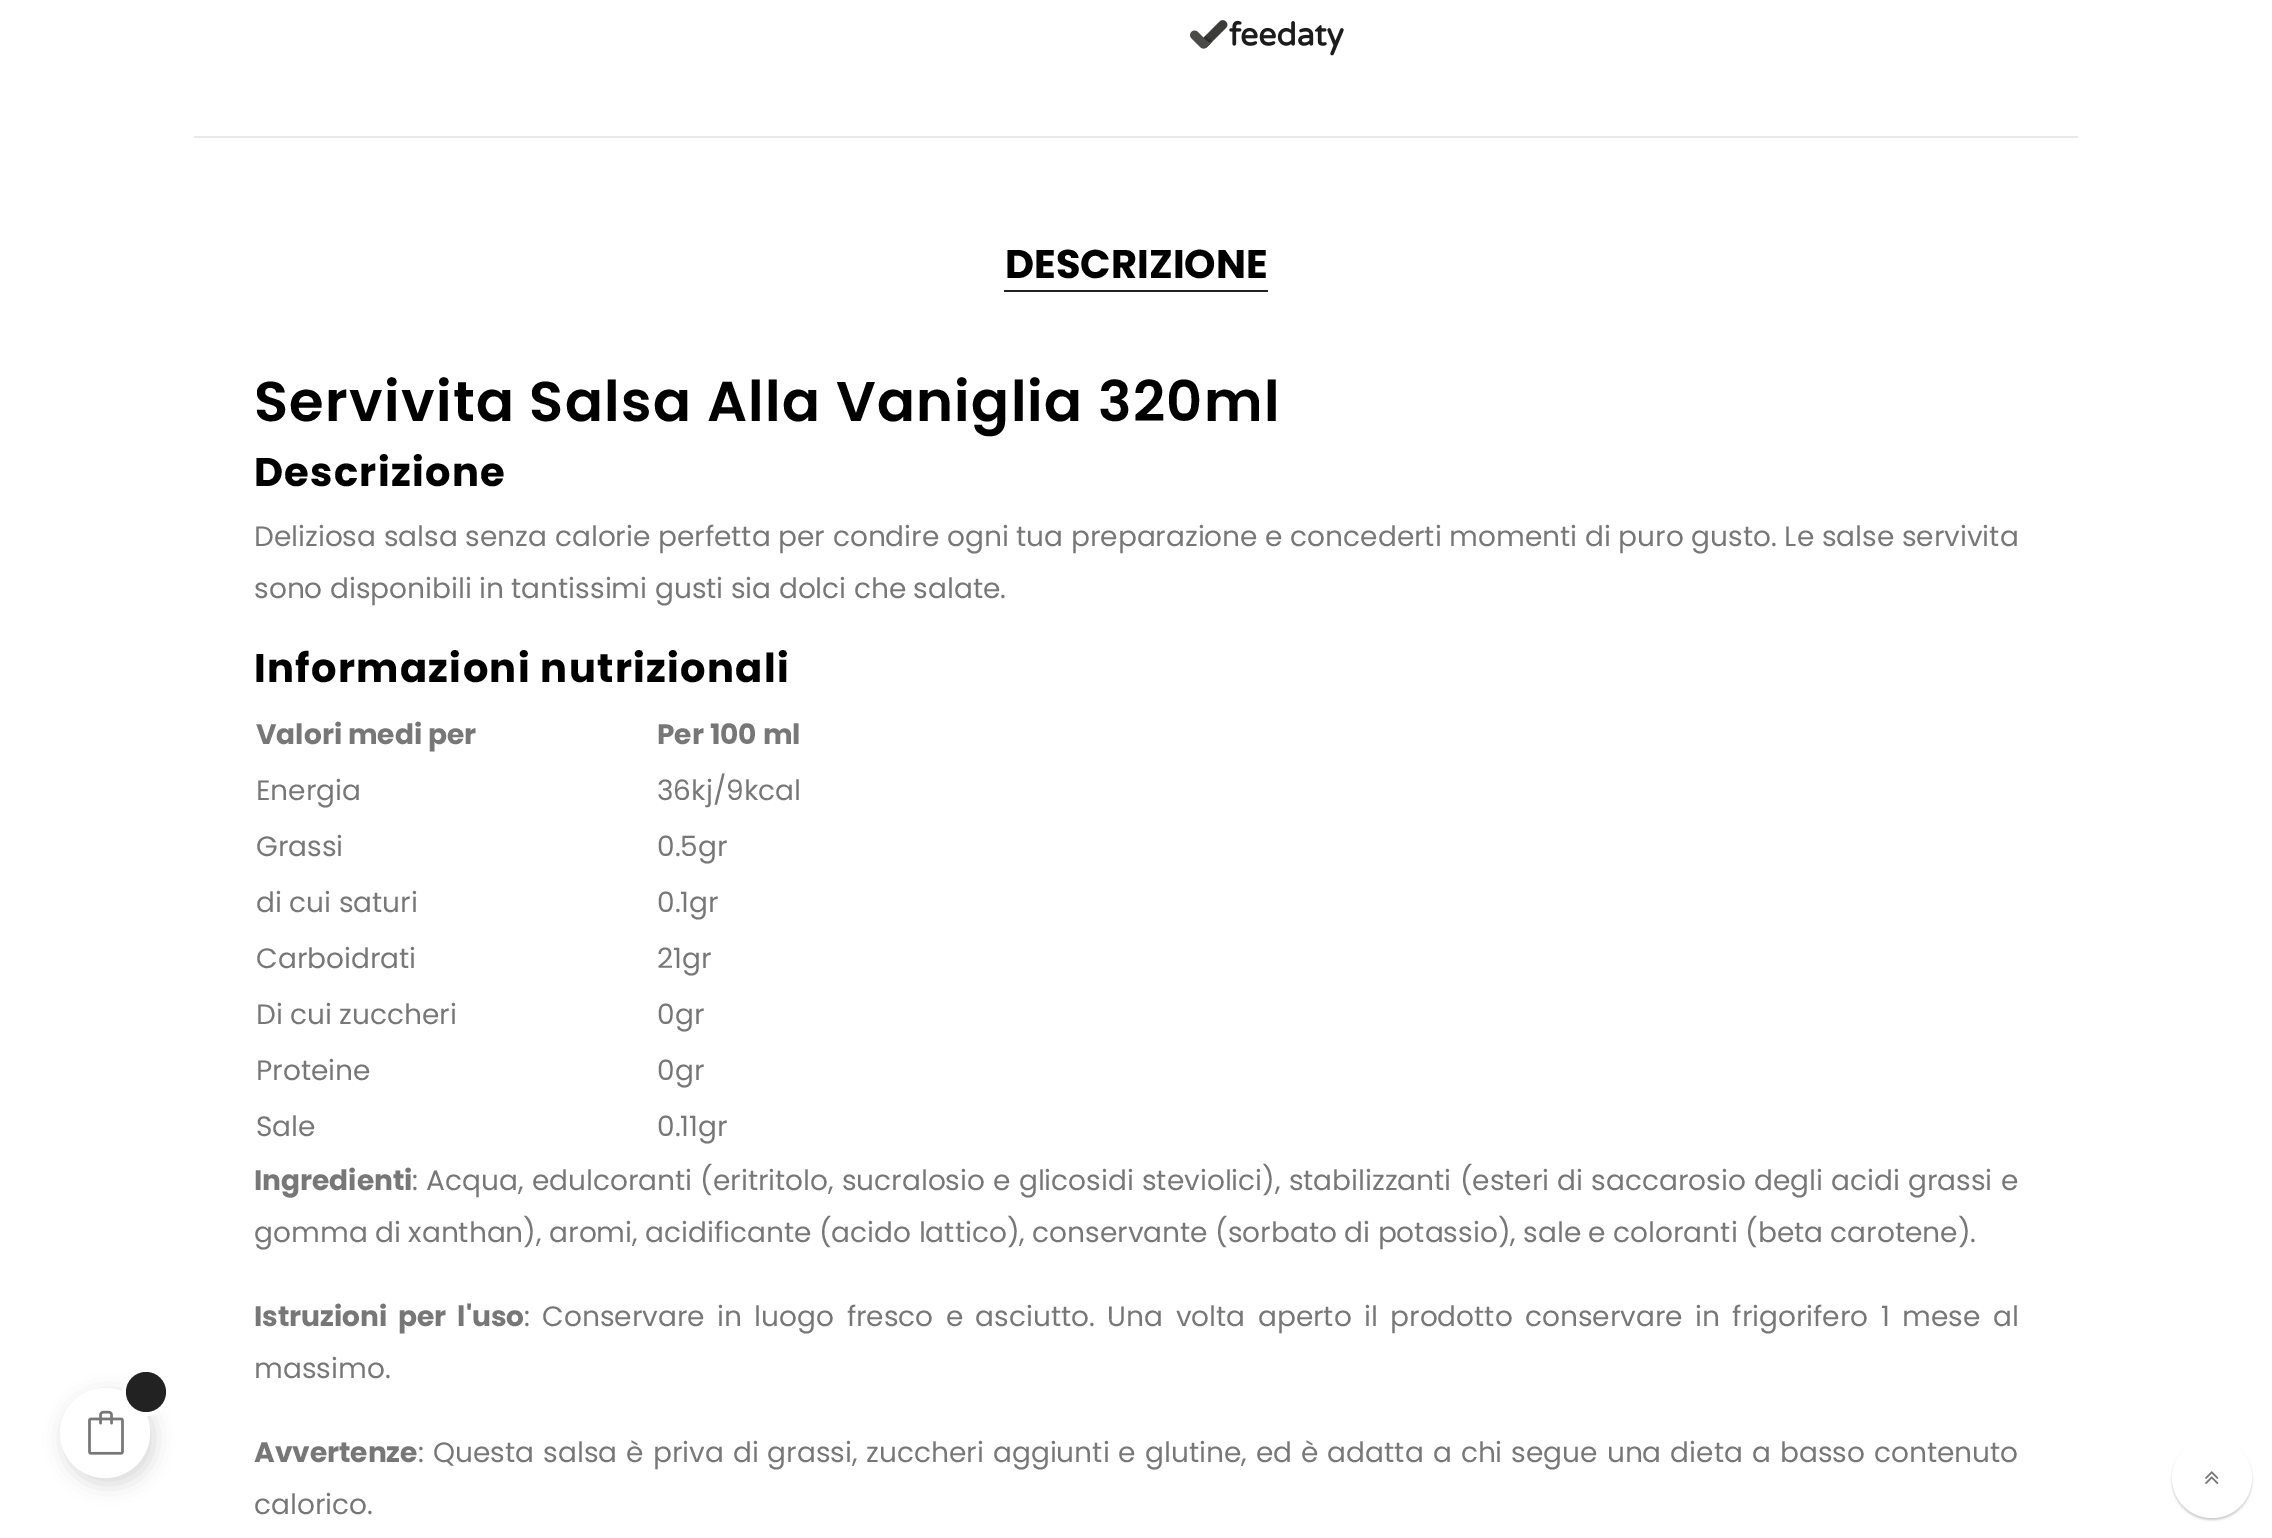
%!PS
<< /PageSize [2272 1538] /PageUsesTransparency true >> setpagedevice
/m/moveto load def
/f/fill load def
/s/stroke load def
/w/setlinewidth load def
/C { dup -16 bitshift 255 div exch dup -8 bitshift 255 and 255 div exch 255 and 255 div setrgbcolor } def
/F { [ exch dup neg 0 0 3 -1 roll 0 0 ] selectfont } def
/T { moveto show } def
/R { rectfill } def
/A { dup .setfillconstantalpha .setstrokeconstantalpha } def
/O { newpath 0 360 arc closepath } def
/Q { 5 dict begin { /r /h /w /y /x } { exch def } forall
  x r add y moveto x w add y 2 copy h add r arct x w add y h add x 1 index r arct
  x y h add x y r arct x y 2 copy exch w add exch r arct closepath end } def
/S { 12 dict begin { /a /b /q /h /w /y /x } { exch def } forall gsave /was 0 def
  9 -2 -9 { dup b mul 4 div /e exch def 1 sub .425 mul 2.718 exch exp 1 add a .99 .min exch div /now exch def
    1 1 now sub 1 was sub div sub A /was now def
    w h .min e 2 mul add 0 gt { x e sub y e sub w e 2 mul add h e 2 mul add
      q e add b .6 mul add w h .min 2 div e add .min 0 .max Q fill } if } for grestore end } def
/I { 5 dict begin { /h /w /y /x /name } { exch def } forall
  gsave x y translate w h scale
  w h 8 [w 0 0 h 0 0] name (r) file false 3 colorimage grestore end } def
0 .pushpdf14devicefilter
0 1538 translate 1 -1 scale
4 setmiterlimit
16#FFFFFF C
0 0 2272 1538 R
16#000000 C
64 1394 90 90 45 10 .15 S
16#FFFFFF C
105 1433 45 O f
(1.rgb) 88 1410 36 45 I
4 w
146 1392 22 O s
16#222222 C
146 1392 20 O f
(2.rgb) 1190 20 154 36 I
16#E9E9E9 C
194 136 1884 2 R
/Poppins-Bold 40 F
16#000000 C
(DESCRIZIONE) 1005 278 T
16#222222 C
1004 290 264 2 R
/Poppins-SemiBold 56 F
16#000000 C
254 421 m 1.3 0 (Servivita Salsa Alla Vaniglia 320ml) ashow
/Poppins-Bold 40 F
254 486 m 1.3 0 (Descrizione) ashow
/Poppins-Regular 28 F
16#777777 C
254 546 m .25 0 32 (Deliziosa salsa senza calorie perfetta per condire ogni tua preparazione e concederti momenti di puro gusto. Le salse servivita) widthshow
(sono disponibili in tantissimi gusti sia dolci che salate.) 254 598 T
/Poppins-Bold 40 F
16#000000 C
254 682 m 1.3 0 (Informazioni nutrizionali) ashow
/Poppins-Bold 28 F
16#777777 C
(Valori medi per) 256 744 T
(Per 100 ml) 657 744 T
/Poppins-Regular 28 F
(Energia) 256 800 T
(36kj/9kcal) 657 800 T
(Grassi) 256 856 T
(0.5gr) 657 856 T
(di cui saturi) 256 912 T
(0.1gr) 657 912 T
(Carboidrati) 256 968 T
(21gr) 657 968 T
(Di cui zuccheri) 256 1024 T
(0gr) 657 1024 T
(Proteine) 256 1080 T
(0gr) 657 1080 T
(Sale) 256 1136 T
(0.11gr) 657 1136 T
/Poppins-Bold 28 F
(Ingredienti) 254 1190 T
/Poppins-Regular 28 F
412 1190 m .75 0 32 (: Acqua, edulcoranti \(eritritolo, sucralosio e glicosidi steviolici\), stabilizzanti \(esteri di saccarosio degli acidi grassi e) widthshow
(gomma di xanthan\), aromi, acidificante \(acido lattico\), conservante \(sorbato di potassio\), sale e coloranti \(beta carotene\).) 254 1242 T
/Poppins-Bold 28 F
254 1326 m 5 0 32 (Istruzioni per l'uso) widthshow
/Poppins-Regular 28 F
524 1326 m 5 0 32 (: Conservare in luogo fresco e asciutto. Una volta aperto il prodotto conservare in frigorifero 1 mese al) widthshow
(massimo.) 254 1378 T
/Poppins-Bold 28 F
(Avvertenze) 254 1462 T
/Poppins-Regular 28 F
418 1462 m 1.6 0 32 (: Questa salsa è priva di grassi, zuccheri aggiunti e glutine, ed è adatta a chi segue una dieta a basso contenuto) widthshow
(calorico.) 254 1514 T
16#000000 C
2172 1440 80 80 40 1 .2 S
16#FFFFFF C
2212 1478 40 O f
(3.rgb) 2205 1471 14 13 I
.poppdf14devicefilter showpage
